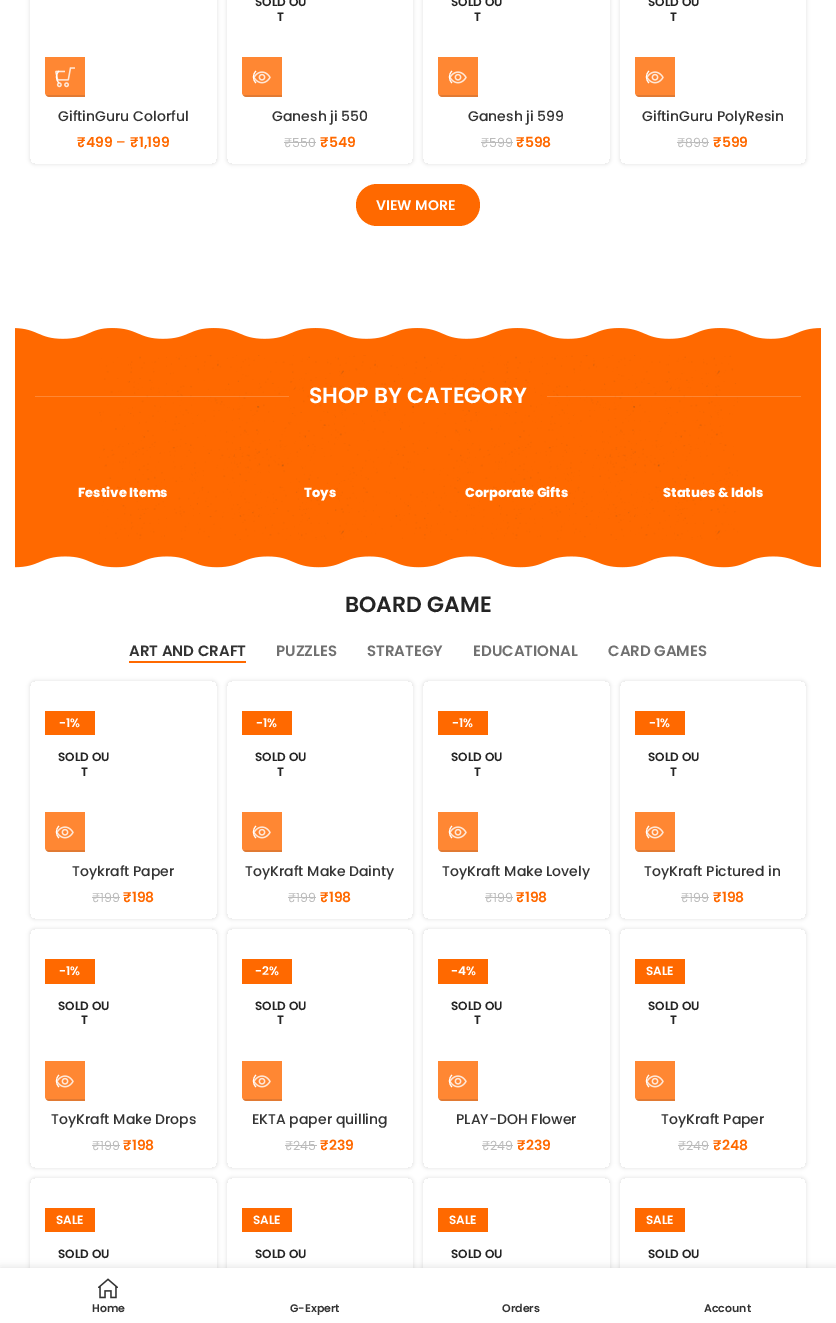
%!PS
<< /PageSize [836 1323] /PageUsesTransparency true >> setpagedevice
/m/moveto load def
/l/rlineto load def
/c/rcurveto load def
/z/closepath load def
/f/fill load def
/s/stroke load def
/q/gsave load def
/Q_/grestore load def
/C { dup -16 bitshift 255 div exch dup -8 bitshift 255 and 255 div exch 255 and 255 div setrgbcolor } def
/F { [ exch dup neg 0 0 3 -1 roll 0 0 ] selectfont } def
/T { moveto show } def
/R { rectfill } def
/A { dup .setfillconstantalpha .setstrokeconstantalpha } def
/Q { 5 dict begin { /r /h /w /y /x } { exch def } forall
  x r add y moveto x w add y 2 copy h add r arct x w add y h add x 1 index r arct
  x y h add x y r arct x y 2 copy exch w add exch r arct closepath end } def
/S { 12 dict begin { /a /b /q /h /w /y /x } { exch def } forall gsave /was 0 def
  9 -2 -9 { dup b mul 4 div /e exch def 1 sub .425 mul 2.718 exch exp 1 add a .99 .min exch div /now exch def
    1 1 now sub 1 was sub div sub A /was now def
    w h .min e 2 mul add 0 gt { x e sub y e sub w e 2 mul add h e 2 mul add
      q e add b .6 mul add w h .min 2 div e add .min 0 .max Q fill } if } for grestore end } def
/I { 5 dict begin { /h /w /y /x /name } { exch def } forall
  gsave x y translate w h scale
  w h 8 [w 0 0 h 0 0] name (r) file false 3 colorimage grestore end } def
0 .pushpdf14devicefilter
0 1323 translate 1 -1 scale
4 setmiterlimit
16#FFFFFF C
0 0 836 1323 R
q
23 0 m 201 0 l 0 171 l -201 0 l z 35 -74 m 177 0 l 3 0 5 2 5 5 c 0 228 l 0 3 -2 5 -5 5 c -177 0 l -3 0 -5 -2 -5 -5 c 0 -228 l 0 -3 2 -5 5 -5 c z eoclip newpath
16#000000 C
30 -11 187 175 5 2 .12 S
Q_
16#FF8733 C
45 57 m 40 0 l 0 40 l -35 0 l -3 0 -5 -2 -5 -5 c z f
q
45 -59 157 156 5 Q clip newpath
0.15 A
16#333333 C
45 95 40 2 R
Q_
(1.rgb) 55 67 20 21 I
16#FFFFFF C
59 83 m -3.5 -3.5 -3.5 -8.5 0 -12 c s
/Poppins-Medium 14 F
16#333333 C
(GiftinGuru Colorful) 58 121 T
/Poppins-SemiBold 14 F
16#FF6900 C
(₹499) 77 147 T
/Poppins-Regular 14 F
(–) 116 147 T
/Poppins-SemiBold 14 F
(₹1,199) 130 147 T
q
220 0 m 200 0 l 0 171 l -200 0 l z 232 -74 m 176 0 l 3 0 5 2 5 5 c 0 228 l 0 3 -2 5 -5 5 c -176 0 l -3 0 -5 -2 -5 -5 c 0 -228 l 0 -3 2 -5 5 -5 c z eoclip newpath
16#000000 C
227 -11 186 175 5 2 .12 S
Q_
/Poppins-SemiBold 12 F
16#242424 C
(SOLD OU) 255 6 T
(T) 277 21 T
16#FF8733 C
242 57 m 40 0 l 0 40 l -35 0 l -3 0 -5 -2 -5 -5 c z f
q
242 -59 156 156 5 Q clip newpath
0.15 A
16#333333 C
242 95 40 2 R
Q_
(2.rgb) 253 71 18 13 I
16#FFFFFF C
256 83 m -3.5 -3.5 -3.5 -8.5 0 -12 c s
/Poppins-Medium 14 F
16#333333 C
(Ganesh ji 550) 272 121 T
/Poppins-Regular 12.5 F
16#BBBBBB C
(₹550) 284 147 T
284 142 32 1 R
/Poppins-SemiBold 14 F
16#FF6900 C
(₹549) 320 147 T
q
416 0 m 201 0 l 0 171 l -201 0 l z 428 -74 m 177 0 l 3 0 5 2 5 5 c 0 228 l 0 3 -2 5 -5 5 c -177 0 l -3 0 -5 -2 -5 -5 c 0 -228 l 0 -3 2 -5 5 -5 c z eoclip newpath
16#000000 C
423 -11 187 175 5 2 .12 S
Q_
/Poppins-SemiBold 12 F
16#242424 C
(SOLD OU) 451 6 T
(T) 474 21 T
16#FF8733 C
438 57 m 40 0 l 0 40 l -35 0 l -3 0 -5 -2 -5 -5 c z f
q
438 -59 157 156 5 Q clip newpath
0.15 A
16#333333 C
438 95 40 2 R
Q_
(2.rgb) 449 71 18 13 I
16#FFFFFF C
452 83 m -3.5 -3.5 -3.5 -8.5 0 -12 c s
/Poppins-Medium 14 F
16#333333 C
(Ganesh ji 599) 468 121 T
/Poppins-Regular 12.5 F
16#BBBBBB C
(₹599) 481 147 T
481 142 32 1 R
/Poppins-SemiBold 14 F
16#FF6900 C
(₹598) 516 147 T
q
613 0 m 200 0 l 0 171 l -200 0 l z 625 -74 m 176 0 l 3 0 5 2 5 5 c 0 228 l 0 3 -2 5 -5 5 c -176 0 l -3 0 -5 -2 -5 -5 c 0 -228 l 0 -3 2 -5 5 -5 c z eoclip newpath
16#000000 C
620 -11 186 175 5 2 .12 S
Q_
/Poppins-SemiBold 12 F
16#242424 C
(SOLD OU) 648 6 T
(T) 670 21 T
16#FF8733 C
635 57 m 40 0 l 0 40 l -35 0 l -3 0 -5 -2 -5 -5 c z f
q
635 -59 156 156 5 Q clip newpath
0.15 A
16#333333 C
635 95 40 2 R
Q_
(2.rgb) 646 71 18 13 I
16#FFFFFF C
649 83 m -3.5 -3.5 -3.5 -8.5 0 -12 c s
/Poppins-Medium 14 F
16#333333 C
(GiftinGuru PolyResin) 642 121 T
/Poppins-Regular 12.5 F
16#BBBBBB C
(₹899) 677 147 T
677 142 32 1 R
/Poppins-SemiBold 14 F
16#FF6900 C
(₹599) 713 147 T
356 184 124 42 21 Q f
16#FFFFFF C
(VIEW MORE) 376 210 T
16#FF6900 C
15 328 806 240 R
(3.rgb) 15 321 806 18 I
(4.rgb) 99 355 639 185 I
0.2 A
16#FFFFFF C
35 396 254 1 R
/Poppins-SemiBold 22 F
1 A
(SHOP BY CATEGORY) 309 403 T
0.2 A
547 396 254 1 R
/Poppins-ExtraBold 13 F
1 A
(Festive Items) 78 497 T
(Toys) 304 497 T
(Corporate Gifts) 465 497 T
(Statues & Idols) 663 497 T
(5.rgb) 15 556 806 19 I
/Poppins-SemiBold 22 F
16#242424 C
(BOARD GAME) 345 612 T
/Poppins-SemiBold 15 F
16#333333 C
(ART AND CRAFT) 129 656 T
16#FF6900 C
129 661 117 2 R
16#707070 C
(PUZZLES) 276 656 T
(STRATEGY) 367 656 T
(EDUCATIONAL) 473 656 T
(CARD GAMES) 608 656 T
q
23 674 m 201 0 l 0 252 l -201 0 l z 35 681 m 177 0 l 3 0 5 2 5 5 c 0 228 l 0 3 -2 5 -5 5 c -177 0 l -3 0 -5 -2 -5 -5 c 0 -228 l 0 -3 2 -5 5 -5 c z eoclip newpath
16#000000 C
30 681 187 238 5 2 .12 S
Q_
16#FF6900 C
45 711 50 24 R
/Poppins-SemiBold 12 F
16#FFFFFF C
(-1%) 59 727 T
16#242424 C
(SOLD OU) 58 761 T
(T) 81 776 T
16#FF8733 C
45 812 m 40 0 l 0 40 l -35 0 l -3 0 -5 -2 -5 -5 c z f
q
45 696 157 156 5 Q clip newpath
0.15 A
16#333333 C
45 850 40 2 R
Q_
(2.rgb) 56 826 18 13 I
16#FFFFFF C
59 838 m -3.5 -3.5 -3.5 -8.5 0 -12 c s
/Poppins-Medium 14 F
16#333333 C
(Toykraft Paper) 72 876 T
/Poppins-Regular 12.5 F
16#BBBBBB C
(₹199) 92 902 T
92 897 28 1 R
/Poppins-SemiBold 14 F
16#FF6900 C
(₹198) 123 902 T
q
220 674 m 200 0 l 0 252 l -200 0 l z 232 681 m 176 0 l 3 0 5 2 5 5 c 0 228 l 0 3 -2 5 -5 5 c -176 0 l -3 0 -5 -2 -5 -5 c 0 -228 l 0 -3 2 -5 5 -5 c z eoclip newpath
16#000000 C
227 681 186 238 5 2 .12 S
Q_
242 711 50 24 R
/Poppins-SemiBold 12 F
16#FFFFFF C
(-1%) 256 727 T
16#242424 C
(SOLD OU) 255 761 T
(T) 277 776 T
16#FF8733 C
242 812 m 40 0 l 0 40 l -35 0 l -3 0 -5 -2 -5 -5 c z f
q
242 696 156 156 5 Q clip newpath
0.15 A
16#333333 C
242 850 40 2 R
Q_
(2.rgb) 253 826 18 13 I
16#FFFFFF C
256 838 m -3.5 -3.5 -3.5 -8.5 0 -12 c s
/Poppins-Medium 14 F
16#333333 C
(ToyKraft Make Dainty) 245 876 T
/Poppins-Regular 12.5 F
16#BBBBBB C
(₹199) 288 902 T
288 897 28 1 R
/Poppins-SemiBold 14 F
16#FF6900 C
(₹198) 320 902 T
q
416 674 m 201 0 l 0 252 l -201 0 l z 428 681 m 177 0 l 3 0 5 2 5 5 c 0 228 l 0 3 -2 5 -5 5 c -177 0 l -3 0 -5 -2 -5 -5 c 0 -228 l 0 -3 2 -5 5 -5 c z eoclip newpath
16#000000 C
423 681 187 238 5 2 .12 S
Q_
438 711 50 24 R
/Poppins-SemiBold 12 F
16#FFFFFF C
(-1%) 452 727 T
16#242424 C
(SOLD OU) 451 761 T
(T) 474 776 T
16#FF8733 C
438 812 m 40 0 l 0 40 l -35 0 l -3 0 -5 -2 -5 -5 c z f
q
438 696 157 156 5 Q clip newpath
0.15 A
16#333333 C
438 850 40 2 R
Q_
(2.rgb) 449 826 18 13 I
16#FFFFFF C
452 838 m -3.5 -3.5 -3.5 -8.5 0 -12 c s
/Poppins-Medium 14 F
16#333333 C
(ToyKraft Make Lovely) 442 876 T
/Poppins-Regular 12.5 F
16#BBBBBB C
(₹199) 485 902 T
485 897 28 1 R
/Poppins-SemiBold 14 F
16#FF6900 C
(₹198) 516 902 T
q
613 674 m 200 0 l 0 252 l -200 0 l z 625 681 m 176 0 l 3 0 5 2 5 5 c 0 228 l 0 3 -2 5 -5 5 c -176 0 l -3 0 -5 -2 -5 -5 c 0 -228 l 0 -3 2 -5 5 -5 c z eoclip newpath
16#000000 C
620 681 186 238 5 2 .12 S
Q_
635 711 50 24 R
/Poppins-SemiBold 12 F
16#FFFFFF C
(-1%) 649 727 T
16#242424 C
(SOLD OU) 648 761 T
(T) 670 776 T
16#FF8733 C
635 812 m 40 0 l 0 40 l -35 0 l -3 0 -5 -2 -5 -5 c z f
q
635 696 156 156 5 Q clip newpath
0.15 A
16#333333 C
635 850 40 2 R
Q_
(2.rgb) 646 826 18 13 I
16#FFFFFF C
649 838 m -3.5 -3.5 -3.5 -8.5 0 -12 c s
/Poppins-Medium 14 F
16#333333 C
(ToyKraft Pictured in) 644 876 T
/Poppins-Regular 12.5 F
16#BBBBBB C
(₹199) 681 902 T
681 897 28 1 R
/Poppins-SemiBold 14 F
16#FF6900 C
(₹198) 713 902 T
q
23 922 m 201 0 l 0 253 l -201 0 l z 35 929 m 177 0 l 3 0 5 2 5 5 c 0 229 l 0 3 -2 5 -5 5 c -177 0 l -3 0 -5 -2 -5 -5 c 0 -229 l 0 -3 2 -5 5 -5 c z eoclip newpath
16#000000 C
30 929 187 239 5 2 .12 S
Q_
45 959 50 25 R
/Poppins-SemiBold 12 F
16#FFFFFF C
(-1%) 59 975 T
16#242424 C
(SOLD OU) 58 1010 T
(T) 81 1024 T
16#FF8733 C
45 1061 m 40 0 l 0 40 l -35 0 l -3 0 -5 -2 -5 -5 c z f
q
45 944 157 157 5 Q clip newpath
0.15 A
16#333333 C
45 1099 40 2 R
Q_
(2.rgb) 56 1075 18 13 I
16#FFFFFF C
59 1087 m -3.5 -3.5 -3.5 -8.5 0 -12 c s
/Poppins-Medium 14 F
16#333333 C
(ToyKraft Make Drops) 51 1124 T
/Poppins-Regular 12.5 F
16#BBBBBB C
(₹199) 92 1150 T
92 1145 28 1 R
/Poppins-SemiBold 14 F
16#FF6900 C
(₹198) 123 1150 T
q
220 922 m 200 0 l 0 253 l -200 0 l z 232 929 m 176 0 l 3 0 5 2 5 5 c 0 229 l 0 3 -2 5 -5 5 c -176 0 l -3 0 -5 -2 -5 -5 c 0 -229 l 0 -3 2 -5 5 -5 c z eoclip newpath
16#000000 C
227 929 186 239 5 2 .12 S
Q_
242 959 50 25 R
/Poppins-SemiBold 12 F
16#FFFFFF C
(-2%) 255 975 T
16#242424 C
(SOLD OU) 255 1010 T
(T) 277 1024 T
16#FF8733 C
242 1061 m 40 0 l 0 40 l -35 0 l -3 0 -5 -2 -5 -5 c z f
q
242 944 156 157 5 Q clip newpath
0.15 A
16#333333 C
242 1099 40 2 R
Q_
(2.rgb) 253 1075 18 13 I
16#FFFFFF C
256 1087 m -3.5 -3.5 -3.5 -8.5 0 -12 c s
/Poppins-Medium 14 F
16#333333 C
(EKTA paper quilling) 252 1124 T
/Poppins-Regular 12.5 F
16#BBBBBB C
(₹245) 285 1150 T
285 1145 32 1 R
/Poppins-SemiBold 14 F
16#FF6900 C
(₹239) 320 1150 T
q
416 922 m 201 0 l 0 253 l -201 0 l z 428 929 m 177 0 l 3 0 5 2 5 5 c 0 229 l 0 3 -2 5 -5 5 c -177 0 l -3 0 -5 -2 -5 -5 c 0 -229 l 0 -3 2 -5 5 -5 c z eoclip newpath
16#000000 C
423 929 187 239 5 2 .12 S
Q_
438 959 50 25 R
/Poppins-SemiBold 12 F
16#FFFFFF C
(-4%) 451 975 T
16#242424 C
(SOLD OU) 451 1010 T
(T) 474 1024 T
16#FF8733 C
438 1061 m 40 0 l 0 40 l -35 0 l -3 0 -5 -2 -5 -5 c z f
q
438 944 157 157 5 Q clip newpath
0.15 A
16#333333 C
438 1099 40 2 R
Q_
(2.rgb) 449 1075 18 13 I
16#FFFFFF C
452 1087 m -3.5 -3.5 -3.5 -8.5 0 -12 c s
/Poppins-Medium 14 F
16#333333 C
(PLAY-DOH Flower) 456 1124 T
/Poppins-Regular 12.5 F
16#BBBBBB C
(₹249) 482 1150 T
482 1145 31 1 R
/Poppins-SemiBold 14 F
16#FF6900 C
(₹239) 517 1150 T
q
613 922 m 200 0 l 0 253 l -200 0 l z 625 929 m 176 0 l 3 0 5 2 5 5 c 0 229 l 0 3 -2 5 -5 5 c -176 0 l -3 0 -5 -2 -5 -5 c 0 -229 l 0 -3 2 -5 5 -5 c z eoclip newpath
16#000000 C
620 929 186 239 5 2 .12 S
Q_
635 959 50 25 R
/Poppins-SemiBold 12 F
16#FFFFFF C
(SALE) 646 975 T
16#242424 C
(SOLD OU) 648 1010 T
(T) 670 1024 T
16#FF8733 C
635 1061 m 40 0 l 0 40 l -35 0 l -3 0 -5 -2 -5 -5 c z f
q
635 944 156 157 5 Q clip newpath
0.15 A
16#333333 C
635 1099 40 2 R
Q_
(2.rgb) 646 1075 18 13 I
16#FFFFFF C
649 1087 m -3.5 -3.5 -3.5 -8.5 0 -12 c s
/Poppins-Medium 14 F
16#333333 C
(ToyKraft Paper) 661 1124 T
/Poppins-Regular 12.5 F
16#BBBBBB C
(₹249) 678 1150 T
678 1145 31 1 R
/Poppins-SemiBold 14 F
16#FF6900 C
(₹248) 713 1150 T
q
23 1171 m 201 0 l 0 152 l -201 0 l z 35 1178 m 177 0 l 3 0 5 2 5 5 c 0 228 l 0 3 -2 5 -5 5 c -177 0 l -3 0 -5 -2 -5 -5 c 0 -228 l 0 -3 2 -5 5 -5 c z eoclip newpath
16#000000 C
30 1178 187 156 5 2 .12 S
Q_
45 1208 50 24 R
/Poppins-SemiBold 12 F
16#FFFFFF C
(SALE) 56 1224 T
16#242424 C
(SOLD OU) 58 1258 T
q
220 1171 m 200 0 l 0 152 l -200 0 l z 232 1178 m 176 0 l 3 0 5 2 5 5 c 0 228 l 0 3 -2 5 -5 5 c -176 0 l -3 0 -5 -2 -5 -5 c 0 -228 l 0 -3 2 -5 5 -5 c z eoclip newpath
16#000000 C
227 1178 186 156 5 2 .12 S
Q_
16#FF6900 C
242 1208 50 24 R
16#FFFFFF C
(SALE) 253 1224 T
16#242424 C
(SOLD OU) 255 1258 T
q
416 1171 m 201 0 l 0 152 l -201 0 l z 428 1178 m 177 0 l 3 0 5 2 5 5 c 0 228 l 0 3 -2 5 -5 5 c -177 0 l -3 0 -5 -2 -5 -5 c 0 -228 l 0 -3 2 -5 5 -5 c z eoclip newpath
16#000000 C
423 1178 187 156 5 2 .12 S
Q_
16#FF6900 C
438 1208 50 24 R
16#FFFFFF C
(SALE) 449 1224 T
16#242424 C
(SOLD OU) 451 1258 T
q
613 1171 m 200 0 l 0 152 l -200 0 l z 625 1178 m 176 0 l 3 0 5 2 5 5 c 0 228 l 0 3 -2 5 -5 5 c -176 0 l -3 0 -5 -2 -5 -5 c 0 -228 l 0 -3 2 -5 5 -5 c z eoclip newpath
16#000000 C
620 1178 186 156 5 2 .12 S
Q_
16#FF6900 C
635 1208 50 24 R
16#FFFFFF C
(SALE) 646 1224 T
16#242424 C
(SOLD OU) 648 1258 T
16#000000 C
0 1268 836 55 0 4.5 .12 S
16#FFFFFF C
0 1268 836 55 R
(6.rgb) 98 1278 20 21 I
/Poppins-SemiBold 11 F
16#333333 C
(Home) 92 1312 T
(G-Expert) 290 1312 T
(Orders) 502 1312 T
(Account) 704 1312 T
.poppdf14devicefilter showpage
